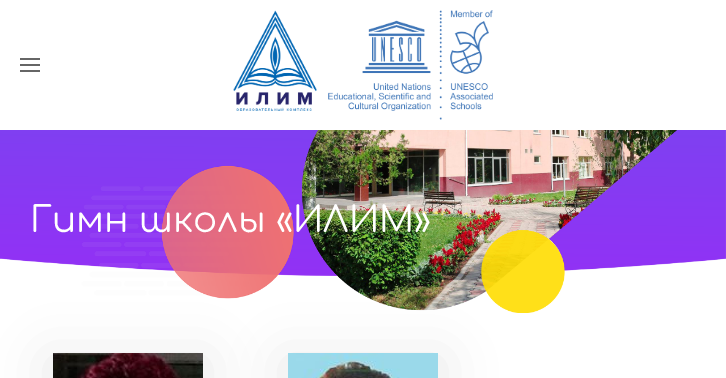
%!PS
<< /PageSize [726 378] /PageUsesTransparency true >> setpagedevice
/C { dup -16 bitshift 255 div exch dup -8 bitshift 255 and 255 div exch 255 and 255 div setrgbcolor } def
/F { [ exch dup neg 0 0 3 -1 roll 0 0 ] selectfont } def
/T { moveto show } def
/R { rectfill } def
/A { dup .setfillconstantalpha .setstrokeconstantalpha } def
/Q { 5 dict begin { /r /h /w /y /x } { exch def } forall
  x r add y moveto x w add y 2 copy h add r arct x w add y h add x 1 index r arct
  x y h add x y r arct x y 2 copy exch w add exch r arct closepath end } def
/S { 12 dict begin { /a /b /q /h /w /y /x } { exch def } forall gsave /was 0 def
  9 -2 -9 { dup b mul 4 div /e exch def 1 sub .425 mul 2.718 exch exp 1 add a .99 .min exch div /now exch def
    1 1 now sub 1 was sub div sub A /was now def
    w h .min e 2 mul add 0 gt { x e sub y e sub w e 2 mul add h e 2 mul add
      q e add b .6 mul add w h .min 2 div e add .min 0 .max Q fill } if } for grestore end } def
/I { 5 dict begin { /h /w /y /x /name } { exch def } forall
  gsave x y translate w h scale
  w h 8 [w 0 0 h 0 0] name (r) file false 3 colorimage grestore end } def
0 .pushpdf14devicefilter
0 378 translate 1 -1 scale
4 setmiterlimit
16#FFFFFF C
0 0 726 378 R
16#666666 C
20 58 20 2 R
20 64 20 2 R
20 70 20 2 R
(1.rgb) 233 10 260 110 I
(2.rgb) 0 130 726 183 I
/Comfortaa-Regular 35.75 F
16#FFFFFF C
(Гимн школы «ИЛИМ») 30 232 T
16#000000 C
48 358 160 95 0 25 .08 S
(3.rgb) 53 353 150 25 I
283 358 160 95 0 25 .08 S
(4.rgb) 288 353 150 25 I
.poppdf14devicefilter showpage
